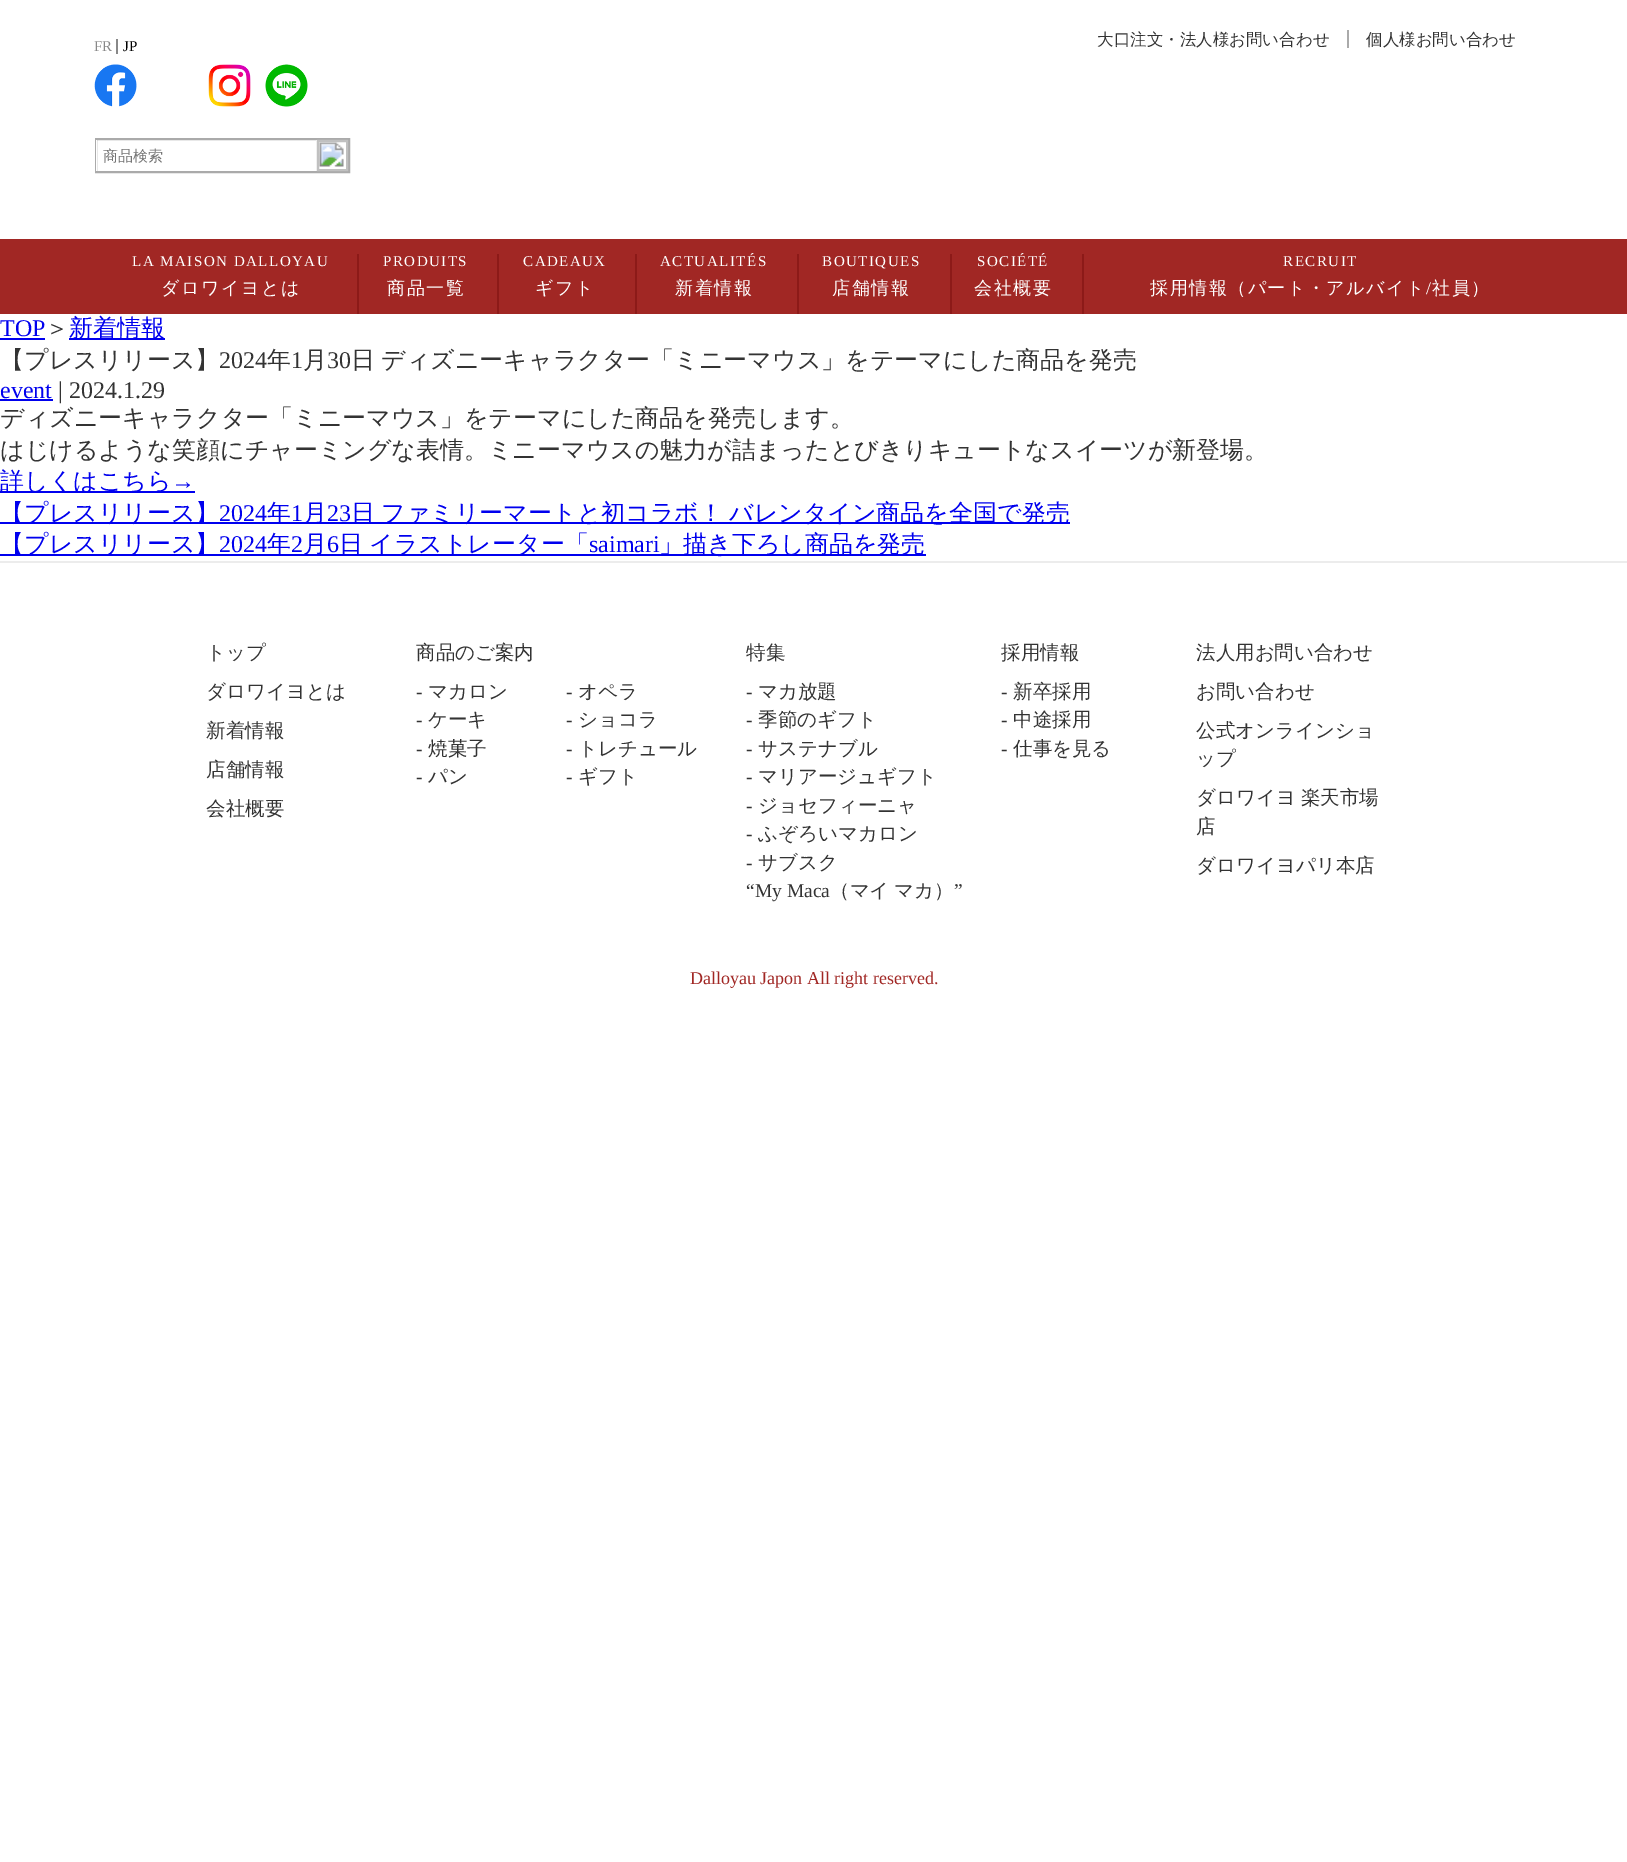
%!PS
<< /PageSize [1627 1862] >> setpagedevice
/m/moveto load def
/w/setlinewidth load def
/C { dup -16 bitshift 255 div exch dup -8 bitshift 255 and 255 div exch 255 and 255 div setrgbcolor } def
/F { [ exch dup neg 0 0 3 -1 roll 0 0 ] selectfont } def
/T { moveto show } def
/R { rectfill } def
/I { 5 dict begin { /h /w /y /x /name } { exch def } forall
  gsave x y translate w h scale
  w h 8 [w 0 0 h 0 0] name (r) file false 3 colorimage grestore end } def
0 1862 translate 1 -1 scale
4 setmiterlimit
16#FFFFFF C
0 0 1627 1862 R
16#888888 C
116 39 2 15 R
/LiberationSerif-Regular 15 F
(FR) 94 51 T
16#000000 C
(JP) 123 51 T
(1.rgb) 94 64 43 43 I
(2.rgb) 208 64 43 43 I
(3.rgb) 265 64 43 43 I
16#AAAAAA C
2 w
96 139 253 33 rectstroke
16#FFFFFF C
96 140 1 31 R
/WenQuanYiZenHei-Medium 15 F
16#757575 C
(商品検索) 103 161 T
(4.rgb) 316 139 32 32 I
16#C0C0C0 C
318 141 29 29 rectstroke
16#AAAAAA C
1347 30 2 18 R
/WenQuanYiZenHei-Medium 16.5 F
16#333333 C
(大口注文・法人様お問い合わせ) 1097 45 T
(個人様お問い合わせ) 1366 45 T
16#A12724 C
0 239 1627 75 R
16#8C1A18 C
357 254 2 60 R
/LiberationSerif-Regular 15 F
16#FFFFFF C
132 266 m 1.5 0 (LA MAISON DALLOYAU) ashow
/WenQuanYiZenHei-Medium 18 F
161 294 m 1.5 0 (ダロワイヨとは) ashow
16#8C1A18 C
497 254 2 60 R
/LiberationSerif-Regular 15 F
16#FFFFFF C
383 266 m 1.5 0 (PRODUITS) ashow
/WenQuanYiZenHei-Medium 18 F
387 294 m 1.5 0 (商品一覧) ashow
16#8C1A18 C
635 254 2 60 R
/LiberationSerif-Regular 15 F
16#FFFFFF C
523 266 m 1.5 0 (CADEAUX) ashow
/WenQuanYiZenHei-Medium 18 F
535 294 m 1.5 0 (ギフト) ashow
16#8C1A18 C
797 254 2 60 R
/LiberationSerif-Regular 15 F
16#FFFFFF C
660 266 m 1.5 0 (ACTUALITÉS) ashow
/WenQuanYiZenHei-Medium 18 F
675 294 m 1.5 0 (新着情報) ashow
16#8C1A18 C
950 254 2 60 R
/LiberationSerif-Regular 15 F
16#FFFFFF C
822 266 m 1.5 0 (BOUTIQUES) ashow
/WenQuanYiZenHei-Medium 18 F
832 294 m 1.5 0 (店舗情報) ashow
16#8C1A18 C
1082 254 2 60 R
/LiberationSerif-Regular 15 F
16#FFFFFF C
977 266 m 1.5 0 (SOCIÉTÉ) ashow
/WenQuanYiZenHei-Medium 18 F
974 294 m 1.5 0 (会社概要) ashow
/LiberationSerif-Regular 15 F
1283 266 m 1.5 0 (RECRUIT) ashow
/WenQuanYiZenHei-Medium 18 F
1150 294 m 1.5 0 (採用情報（パート・アルバイト) ashow
/LiberationSerif-Regular 18 F
1426 294 m 1.5 0 (/) ashow
/WenQuanYiZenHei-Medium 18 F
1432 294 m 1.5 0 (社員）) ashow
/LiberationSerif-Regular 24 F
16#0000EE C
(TOP) 0 336 T
0 338 45 2 R
/WenQuanYiZenHei-Medium 24 F
16#333333 C
(＞) 45 336 T
16#0000EE C
69 338 96 2 R
(新着情報) 69 336 T
16#333333 C
(【プレスリリース】) 0 368 T
/LiberationSerif-Regular 24 F
(2024) 219 368 T
/WenQuanYiZenHei-Medium 24 F
(年) 267 368 T
/LiberationSerif-Regular 24 F
(1) 291 368 T
/WenQuanYiZenHei-Medium 24 F
(月) 303 368 T
/LiberationSerif-Regular 24 F
(30) 327 368 T
/WenQuanYiZenHei-Medium 24 F
351 368 m -1 0 32 (日 ディズニーキャラクター「ミニーマウス」をテーマにした商品を発売) widthshow
/LiberationSerif-Regular 24 F
16#0000EE C
(event) 0 398 T
0 399 53 2 R
16#333333 C
(| 2024.1.29) 58 398 T
/WenQuanYiZenHei-Medium 24 F
(ディズニーキャラクター「ミニーマウス」をテーマにした商品を発売します。) 0 426 T
(はじけるような笑顔にチャーミングな表情。ミニーマウスの魅力が詰まったとびきりキュートなスイーツが新登場。) 0 458 T
16#0000EE C
0 491 195 2 R
(詳しくはこちら) 0 489 T
/LiberationSans-Regular 24 F
(→) 171 489 T
0 522 1070 2 R
/WenQuanYiZenHei-Medium 24 F
(【プレスリリース】) 0 521 T
/LiberationSerif-Regular 24 F
(2024) 219 521 T
/WenQuanYiZenHei-Medium 24 F
(年) 267 521 T
/LiberationSerif-Regular 24 F
(1) 291 521 T
/WenQuanYiZenHei-Medium 24 F
(月) 303 521 T
/LiberationSerif-Regular 24 F
(23) 327 521 T
/WenQuanYiZenHei-Medium 24 F
351 521 m -1 0 32 (日 ファミリーマートと初コラボ！ バレンタイン商品を全国で発売) widthshow
0 554 926 2 R
(【プレスリリース】) 0 552 T
/LiberationSerif-Regular 24 F
(2024) 219 552 T
/WenQuanYiZenHei-Medium 24 F
(年) 267 552 T
/LiberationSerif-Regular 24 F
(2) 291 552 T
/WenQuanYiZenHei-Medium 24 F
(月) 303 552 T
/LiberationSerif-Regular 24 F
(6) 327 552 T
/WenQuanYiZenHei-Medium 24 F
339 552 m -1 0 32 (日 イラストレーター「) widthshow
/LiberationSerif-Regular 24 F
(saimari) 589 552 T
/WenQuanYiZenHei-Medium 24 F
(」描き下ろし商品を発売) 659 552 T
16#ECECEC C
0 561 1627 2 R
/WenQuanYiZenHei-Medium 19.5 F
16#333333 C
(トップ) 206 659 T
(ダロワイヨとは) 206 698 T
(新着情報) 206 737 T
(店舗情報) 206 776 T
(会社概要) 206 815 T
(商品のご案内) 416 659 T
/LiberationSerif-Regular 19.5 F
(-) 416 698 T
/WenQuanYiZenHei-Medium 19.5 F
(マカロン) 428 698 T
/LiberationSerif-Regular 19.5 F
(-) 416 726 T
/WenQuanYiZenHei-Medium 19.5 F
(ケーキ) 428 726 T
/LiberationSerif-Regular 19.5 F
(-) 416 755 T
/WenQuanYiZenHei-Medium 19.5 F
(焼菓子) 428 755 T
/LiberationSerif-Regular 19.5 F
(-) 416 783 T
/WenQuanYiZenHei-Medium 19.5 F
(パン) 428 783 T
/LiberationSerif-Regular 19.5 F
(-) 566 698 T
/WenQuanYiZenHei-Medium 19.5 F
(オペラ) 578 698 T
/LiberationSerif-Regular 19.5 F
(-) 566 726 T
/WenQuanYiZenHei-Medium 19.5 F
(ショコラ) 578 726 T
/LiberationSerif-Regular 19.5 F
(-) 566 755 T
/WenQuanYiZenHei-Medium 19.5 F
(トレチュール) 578 755 T
/LiberationSerif-Regular 19.5 F
(-) 566 783 T
/WenQuanYiZenHei-Medium 19.5 F
(ギフト) 578 783 T
(特集) 746 659 T
/LiberationSerif-Regular 19.5 F
(-) 746 698 T
/WenQuanYiZenHei-Medium 19.5 F
(マカ放題) 758 698 T
/LiberationSerif-Regular 19.5 F
(-) 746 726 T
/WenQuanYiZenHei-Medium 19.5 F
(季節のギフト) 758 726 T
/LiberationSerif-Regular 19.5 F
(-) 746 755 T
/WenQuanYiZenHei-Medium 19.5 F
(サステナブル) 758 755 T
/LiberationSerif-Regular 19.5 F
(-) 746 783 T
/WenQuanYiZenHei-Medium 19.5 F
(マリアージュギフト) 758 783 T
/LiberationSerif-Regular 19.5 F
(-) 746 812 T
/WenQuanYiZenHei-Medium 19.5 F
(ジョセフィーニャ) 758 812 T
/LiberationSerif-Regular 19.5 F
(-) 746 840 T
/WenQuanYiZenHei-Medium 19.5 F
(ふぞろいマカロン) 758 840 T
/LiberationSerif-Regular 19.5 F
(-) 746 869 T
/WenQuanYiZenHei-Medium 19.5 F
(サブスク) 758 869 T
/LiberationSerif-Regular 19.5 F
(“My Maca) 746 897 T
/WenQuanYiZenHei-Medium 19.5 F
(（マイ) 830 897 T
(マカ）) 894 897 T
/LiberationSerif-Regular 19.5 F
(”) 954 897 T
/WenQuanYiZenHei-Medium 19.5 F
(採用情報) 1001 659 T
/LiberationSerif-Regular 19.5 F
(-) 1001 698 T
/WenQuanYiZenHei-Medium 19.5 F
(新卒採用) 1013 698 T
/LiberationSerif-Regular 19.5 F
(-) 1001 726 T
/WenQuanYiZenHei-Medium 19.5 F
(中途採用) 1013 726 T
/LiberationSerif-Regular 19.5 F
(-) 1001 755 T
/WenQuanYiZenHei-Medium 19.5 F
(仕事を見る) 1013 755 T
(法人用お問い合わせ) 1196 659 T
(お問い合わせ) 1196 698 T
(公式オンラインショ) 1196 737 T
(ップ) 1196 765 T
1196 804 m -1 0 32 (ダロワイヨ 楽天市場) widthshow
(店) 1196 833 T
(ダロワイヨパリ本店) 1196 872 T
/LiberationSerif-Regular 18 F
16#A12724 C
(Dalloyau Japon All right reserved.) 690 984 T
showpage
